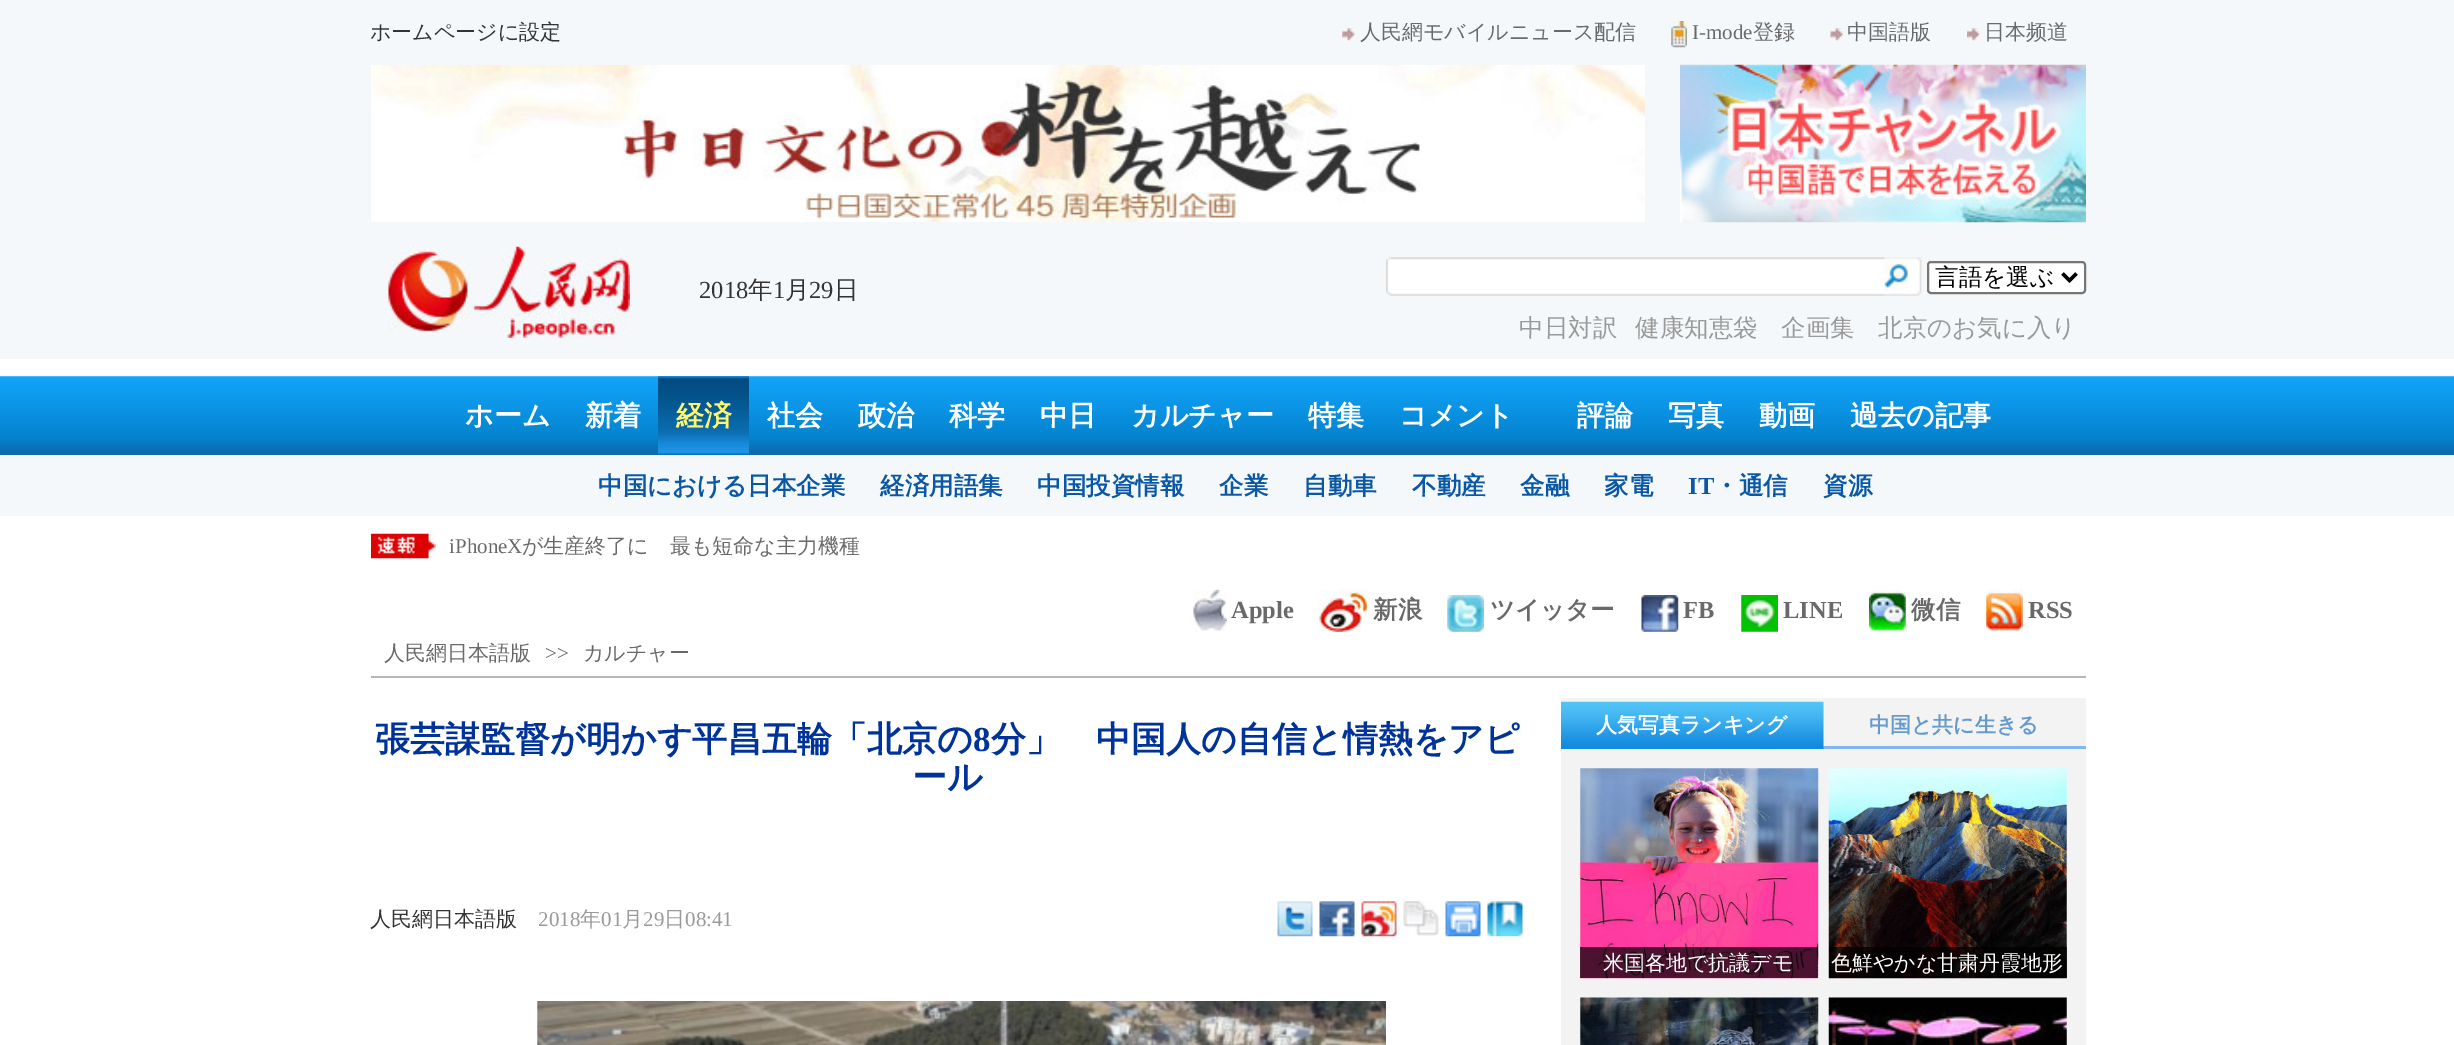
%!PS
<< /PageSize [2454 1045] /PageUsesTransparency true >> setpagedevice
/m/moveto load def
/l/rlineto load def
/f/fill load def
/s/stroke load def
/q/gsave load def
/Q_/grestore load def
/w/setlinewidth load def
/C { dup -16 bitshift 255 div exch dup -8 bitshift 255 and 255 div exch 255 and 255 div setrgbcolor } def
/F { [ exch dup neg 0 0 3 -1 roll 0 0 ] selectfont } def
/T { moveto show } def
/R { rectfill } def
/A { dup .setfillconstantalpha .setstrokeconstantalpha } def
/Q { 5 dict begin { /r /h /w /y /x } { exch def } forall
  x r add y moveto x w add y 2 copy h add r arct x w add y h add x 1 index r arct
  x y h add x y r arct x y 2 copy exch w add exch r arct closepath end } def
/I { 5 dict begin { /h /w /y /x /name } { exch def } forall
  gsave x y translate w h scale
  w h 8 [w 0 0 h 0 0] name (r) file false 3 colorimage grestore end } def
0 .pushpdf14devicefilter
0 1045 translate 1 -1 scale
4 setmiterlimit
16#FFFFFF C
0 0 2454 1045 R
16#F5F8FA C
0 0 2454 359 R
/WenQuanYiZenHei-Medium 21 F
16#333333 C
(ホームページに設定) 370 39 T
(1.rgb) 1342 28 13 13 I
16#696969 C
(人民網モバイルニュース配信) 1360 39 T
(2.rgb) 1671 21 16 27 I
/LiberationSerif-Regular 21 F
(I-mode) 1692 39 T
/WenQuanYiZenHei-Medium 21 F
(登録) 1753 39 T
(3.rgb) 1830 28 13 13 I
(中国語版) 1847 39 T
(4.rgb) 1967 28 13 13 I
(日本频道) 1984 39 T
(5.rgb) 371 65 1274 157 I
(6.rgb) 1680 64 406 159 I
(7.rgb) 388 246 242 92 I
/LiberationSerif-Regular 24.5 F
16#333333 C
(2018) 699 298 T
/WenQuanYiZenHei-Medium 24.5 F
(年) 748 298 T
/LiberationSerif-Regular 24.5 F
(1) 773 298 T
/WenQuanYiZenHei-Medium 24.5 F
(月) 785 298 T
/LiberationSerif-Regular 24.5 F
(29) 809 298 T
/WenQuanYiZenHei-Medium 24.5 F
(日) 834 298 T
(8.rgb) 1386 257 499 39 I
(9.rgb) 1884 257 38 39 I
16#FFFFFF C
1928 262 157 31 3 Q q f Q_
16#767676 C
2 w
s
16#000000 C
3.5 w
2062.5 273.5 m 7 7 l 7 -7 l s
/WenQuanYiZenHei-Medium 23.5 F
(言語を選ぶ) 1935 285 T
/WenQuanYiZenHei-Medium 24.5 F
16#999999 C
(中日対訳) 1519 336 T
(健康知恵袋) 1635 336 T
(企画集) 1781 336 T
(北京のお気に入り) 1878 336 T
(10.rgb) 0 376 2454 79 I
/WenQuanYiZenHei-Bold 28 F
16#FFFFFF C
(ホーム) 465 425 T
(新着) 585 425 T
(11.rgb) 658 376 91 79 I
16#FFF66D C
(経済) 676 425 T
16#FFFFFF C
(社会) 767 425 T
(政治) 858 425 T
(科学) 949 425 T
(中日) 1040 425 T
(カルチャー) 1131 425 T
(特集) 1308 425 T
(コメント) 1399 425 T
(評論) 1577 425 T
(写真) 1668 425 T
(動画) 1759 425 T
(過去の記事) 1850 425 T
16#F5F8FA C
0 455 2454 61 R
/WenQuanYiZenHei-Bold 24.5 F
16#0A58A5 C
(中国における日本企業) 598 494 T
(経済用語集) 880 494 T
(中国投資情報) 1037 494 T
(企業) 1219 494 T
(自動車) 1303 494 T
(不動産) 1412 494 T
(金融) 1520 494 T
(家電) 1604 494 T
/LiberationSerif-Bold 24.5 F
(IT) 1688 494 T
/WenQuanYiZenHei-Bold 24.5 F
(・通信) 1714 494 T
(資源) 1823 494 T
(12.rgb) 371 533 65 26 I
/LiberationSerif-Regular 21 F
16#696969 C
(iPhoneX) 449 553 T
/WenQuanYiZenHei-Medium 21 F
(が生産終了に　最も短命な主力機種) 522 553 T
(13.rgb) 1193 589 34 43 I
/LiberationSerif-Bold 24.5 F
(Apple) 1231 618 T
(14.rgb) 1319 589 48 43 I
/WenQuanYiZenHei-Bold 24.5 F
(新浪) 1373 618 T
(15.rgb) 1447 595 37 37 I
(ツイッター) 1490 618 T
(16.rgb) 1641 595 38 37 I
/LiberationSerif-Bold 24.5 F
(FB) 1683 618 T
(17.rgb) 1741 595 37 37 I
(LINE) 1783 618 T
(18.rgb) 1869 590 37 42 I
/WenQuanYiZenHei-Bold 24.5 F
(微信) 1911 618 T
(19.rgb) 1986 589 37 43 I
/LiberationSerif-Bold 24.5 F
(RSS) 2028 618 T
16#B7B7B7 C
371 676 1715 2 R
/WenQuanYiZenHei-Medium 21 F
16#696969 C
(人民網日本語版) 384 660 T
/LiberationSerif-Regular 21 F
(>>) 545 660 T
/WenQuanYiZenHei-Medium 21 F
(カルチャー) 583 660 T
/WenQuanYiZenHei-Bold 35 F
16#003399 C
(張芸謀監督が明かす平昌五輪「北京の) 375 751 T
/LiberationSerif-Bold 35 F
(8) 973 751 T
/WenQuanYiZenHei-Bold 35 F
(分」　中国人の自信と情熱をアピ) 991 751 T
(ール) 912 789 T
/WenQuanYiZenHei-Medium 21 F
16#333333 C
(人民網日本語版) 370 926 T
/LiberationSerif-Regular 21 F
16#999999 C
(2018) 538 926 T
/WenQuanYiZenHei-Medium 21 F
(年) 580 926 T
/LiberationSerif-Regular 21 F
(01) 601 926 T
/WenQuanYiZenHei-Medium 21 F
(月) 622 926 T
/LiberationSerif-Regular 21 F
(29) 643 926 T
/WenQuanYiZenHei-Medium 21 F
(日) 664 926 T
/LiberationSerif-Regular 21 F
(08:41) 685 926 T
(20.rgb) 1277 901 36 36 I
(21.rgb) 1319 901 36 36 I
(22.rgb) 1361 901 36 36 I
(23.rgb) 1403 901 36 35 I
(24.rgb) 1445 901 36 36 I
(25.rgb) 1487 901 36 36 I
(26.rgb) 537 1001 849 44 I
16#F3F3F3 C
1561 698 525 347 R
16#83B6EA C
1823 746 263 3 R
(27.rgb) 1561 701 263 48 I
/WenQuanYiZenHei-Bold 21 F
16#FFFFFF C
(人気写真ランキング) 1596 732 T
16#6699CC C
(中国と共に生きる) 1869 732 T
(28.rgb) 1580 768 239 211 I
0.7 A
16#000000 C
1580 947 238 31 R
/WenQuanYiZenHei-Medium 21 F
1 A
16#FFFFFF C
(米国各地で抗議デモ) 1603 970 T
(29.rgb) 1828 768 239 211 I
0.7 A
16#000000 C
1829 947 238 31 R
1 A
16#FFFFFF C
(色鮮やかな甘粛丹霞地形) 1831 970 T
(30.rgb) 1580 997 239 48 I
(31.rgb) 1828 997 239 48 I
.poppdf14devicefilter showpage
